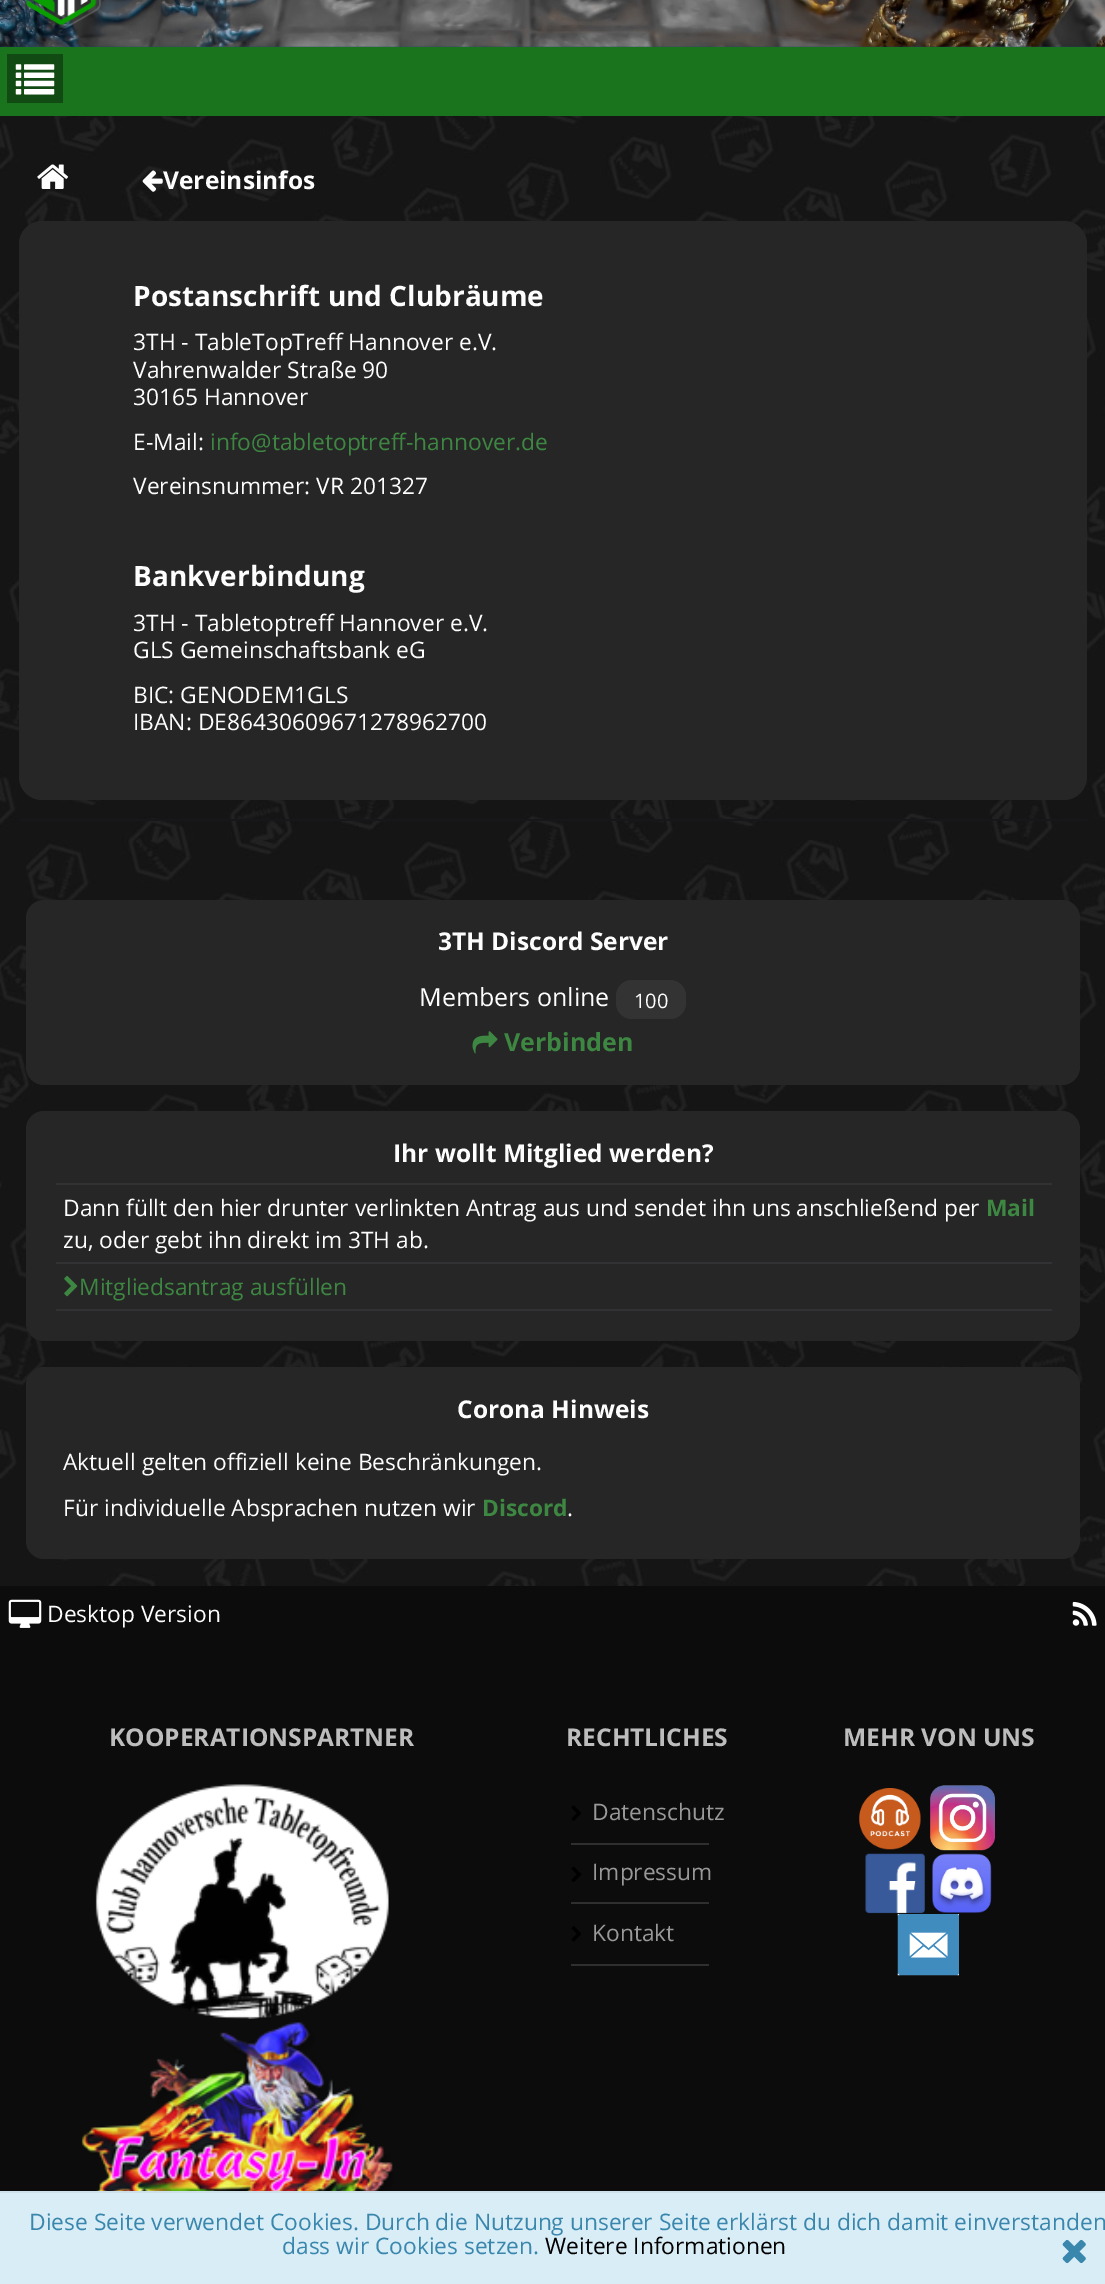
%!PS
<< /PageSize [1105 2284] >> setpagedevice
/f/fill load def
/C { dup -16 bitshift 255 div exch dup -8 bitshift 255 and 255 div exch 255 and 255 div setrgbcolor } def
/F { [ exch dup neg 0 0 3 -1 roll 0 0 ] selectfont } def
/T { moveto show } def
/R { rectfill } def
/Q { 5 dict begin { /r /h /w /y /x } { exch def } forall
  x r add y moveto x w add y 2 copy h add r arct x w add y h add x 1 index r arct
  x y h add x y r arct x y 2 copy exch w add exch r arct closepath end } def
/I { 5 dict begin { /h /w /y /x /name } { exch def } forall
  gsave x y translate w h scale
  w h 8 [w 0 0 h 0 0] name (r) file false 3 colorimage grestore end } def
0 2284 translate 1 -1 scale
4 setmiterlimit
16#FFFFFF C
0 0 1105 2284 R
(1.rgb) 0 46 1105 1540 I
(2.rgb) 0 0 1105 47 I
(3.rgb) 26 0 75 29 I
16#1A741D C
0 47 1105 69 R
16#114A13 C
7 54 56 49 R
(4.rgb) 15 64 40 31 I
(5.rgb) 37 164 32 25 I
(6.rgb) 142 170 21 22 I
/OpenSans-Bold 24.5 F
16#FDFDFD C
(Vereinsinfos) 163 189 T
16#262626 C
19 221 1068 579 23 Q f
/OpenSans-Bold 28 F
16#FDFDFD C
(Postanschrift und Clubräume) 133 306 T
/OpenSans-Regular 22.75 F
(3TH - TableTopTreff Hannover e.V.) 133 350 T
(Vahrenwalder Straße 90) 133 378 T
(30165 Hannover) 133 405 T
(E-Mail:) 133 450 T
16#3D8742 C
(info@tabletoptreff-hannover.de) 210 450 T
16#FDFDFD C
(Vereinsnummer: VR 201327) 133 494 T
/OpenSans-Bold 28 F
(Bankverbindung) 133 586 T
/OpenSans-Regular 22.75 F
(3TH - Tabletoptreff Hannover e.V.) 133 631 T
(GLS Gemeinschaftsbank eG) 133 658 T
(BIC: GENODEM1GLS) 133 703 T
(IBAN: DE86430609671278962700) 133 730 T
16#171719 C
19 819 1068 2 R
16#D9EDF7 C
0 2193 1105 91 R
16#CEE1EB C
0 2191 1105 2 R
16#3A87AD C
(Diese Seite verwendet Cookies. Durch die Nutzung unserer Seite erklärst du dich damit einverstanden) 29 2230 T
(dass wir Cookies setzen.) 282 2254 T
16#000000 C
(Weitere Informationen) 545 2254 T
(7.rgb) 1062 2239 24 25 I
16#262626 C
26 900 1054 185 18 Q f
/OpenSans-Bold 24.5 F
16#FDFDFD C
(3TH Discord Server) 438 950 T
/OpenSans-Regular 25 F
(Members online) 419 1006 T
16#333333 C
616 980 70 39 16 Q f
/OpenSans-Regular 20 F
16#FDFDFD C
(100) 634 1008 T
(8.rgb) 472 1031 26 23 I
/OpenSans-Bold 25 F
16#3D8742 C
(Verbinden) 504 1051 T
16#262626 C
26 1111 1054 230 18 Q f
/OpenSans-Bold 24.5 F
16#FDFDFD C
(Ihr wollt Mitglied werden?) 393 1162 T
16#323235 C
56 1183 996 2 R
/OpenSans-Regular 22.75 F
16#FDFDFD C
(Dann füllt den hier drunter verlinkten Antrag aus und sendet ihn uns anschließend per) 63 1216 T
/OpenSans-Bold 22.75 F
16#3D8742 C
(Mail) 986 1216 T
/OpenSans-Regular 22.75 F
16#FDFDFD C
(zu, oder gebt ihn direkt im 3TH ab.) 63 1248 T
16#323235 C
56 1262 996 2 R
56 1309 996 2 R
(9.rgb) 64 1275 14 22 I
16#3D8742 C
(Mitgliedsantrag ausfüllen) 79 1295 T
16#262626 C
26 1367 1054 192 18 Q f
/OpenSans-Bold 24.5 F
16#FDFDFD C
(Corona Hinweis) 457 1418 T
/OpenSans-Regular 22.75 F
(Aktuell gelten offiziell keine Beschränkungen.) 63 1470 T
(Für individuelle Absprachen nutzen wir) 63 1516 T
/OpenSans-Bold 22.75 F
16#3D8742 C
(Discord) 482 1516 T
/OpenSans-Regular 22.75 F
16#FDFDFD C
(.) 567 1516 T
16#0C0C0C C
0 1586 1105 605 R
(10.rgb) 8 1599 34 29 I
16#FDFDFD C
(Desktop Version) 47 1622 T
(11.rgb) 1072 1601 25 25 I
/OpenSans-Bold 24.5 F
16#BDBDBD C
(KOOPERATIONSPARTNER) 109 1746 T
(12.rgb) 95 1784 294 235 I
(13.rgb) 81 2022 312 169 I
(RECHTLICHES) 566 1746 T
16#2F2F2F C
571 1843 138 2 R
(14.rgb) 571 1805 10 16 I
/OpenSans-Regular 22.75 F
16#999999 C
(Datenschutz) 592 1820 T
16#2F2F2F C
571 1902 138 2 R
(15.rgb) 571 1866 11 16 I
16#999999 C
(Impressum) 592 1880 T
16#2F2F2F C
571 1964 138 2 R
(16.rgb) 571 1926 10 16 I
16#999999 C
(Kontakt) 592 1941 T
/OpenSans-Bold 24.5 F
16#BDBDBD C
(MEHR VON UNS) 843 1746 T
(17.rgb) 859 1788 62 62 I
(18.rgb) 930 1785 66 66 I
(19.rgb) 865 1853 60 61 I
(20.rgb) 931 1853 61 61 I
(21.rgb) 897 1914 62 62 I
showpage
